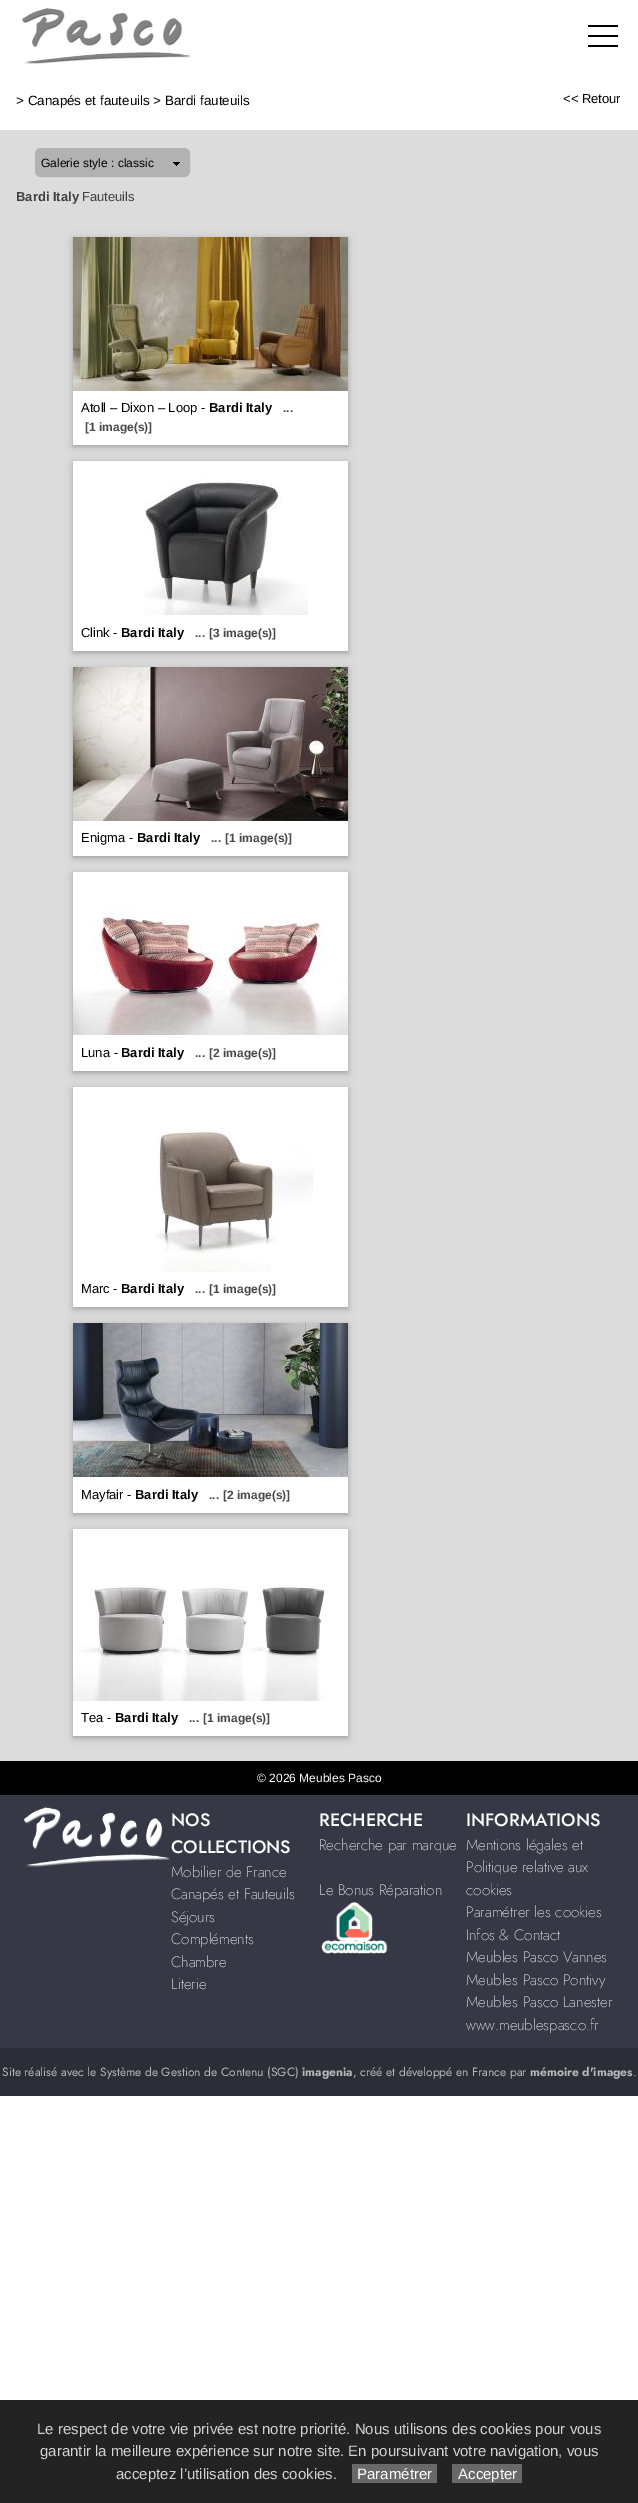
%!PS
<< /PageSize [638 2503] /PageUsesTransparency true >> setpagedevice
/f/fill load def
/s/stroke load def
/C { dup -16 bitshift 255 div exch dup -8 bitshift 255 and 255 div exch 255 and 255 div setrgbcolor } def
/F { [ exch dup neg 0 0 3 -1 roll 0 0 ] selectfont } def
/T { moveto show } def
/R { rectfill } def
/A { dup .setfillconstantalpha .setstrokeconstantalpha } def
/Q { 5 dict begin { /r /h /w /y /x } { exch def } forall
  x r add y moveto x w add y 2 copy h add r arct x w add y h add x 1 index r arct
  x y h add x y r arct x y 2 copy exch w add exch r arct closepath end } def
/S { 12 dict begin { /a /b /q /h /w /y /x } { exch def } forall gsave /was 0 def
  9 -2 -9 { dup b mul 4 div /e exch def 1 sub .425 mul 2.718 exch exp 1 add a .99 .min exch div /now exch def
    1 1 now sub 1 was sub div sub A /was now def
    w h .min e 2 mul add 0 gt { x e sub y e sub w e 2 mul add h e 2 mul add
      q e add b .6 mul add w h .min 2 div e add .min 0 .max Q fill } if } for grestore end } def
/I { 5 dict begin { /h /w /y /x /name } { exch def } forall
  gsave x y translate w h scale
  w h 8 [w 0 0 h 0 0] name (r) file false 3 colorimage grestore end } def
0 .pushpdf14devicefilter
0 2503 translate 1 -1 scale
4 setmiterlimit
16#FFFFFF C
0 0 638 2503 R
(1.rgb) 22 7 169 57 I
16#000000 C
588 25 30 2 R
588 35 30 2 R
588 45 30 2 R
/LiberationSans-Regular 13.4 F
(> Canapés et fauteuils > Bardi fauteuils) 16 105 T
/LiberationSans-Regular 13 F
(<< Retour) 563 103 T
16#DCDCDC C
0 130 638 1631 R
16#B2B2B2 C
35 148 155 29 6 Q f
(2.rgb) 173 162 7 4 I
35.5 148.5 154 28 5.5 Q s
/LiberationSans-Regular 12 F
16#000000 C
(Galerie style : classic) 41 167 T
/LiberationSans-Bold 13 F
16#404040 C
(Bardi Italy) 16 201 T
/LiberationSans-Regular 13 F
(Fauteuils) 82 201 T
16#000000 C
73 239 275 208 0 5 .12 S
73 239 275 208 0 2 .16 S
16#FFFFFF C
73 391 275 54 R
(3.rgb) 73 237 275 154 I
16#000000 C
(Atoll – Dixon – Loop -) 81 412 T
/LiberationSans-Bold 13 F
(Bardi Italy) 209 412 T
/LiberationSans-Bold 12 F
16#484848 C
(...) 283 412 T
([1 image\(s\)]) 85 431 T
16#000000 C
73 463 275 190 0 5 .12 S
73 463 275 190 0 2 .16 S
16#FFFFFF C
73 461 275 190 R
(4.rgb) 143 478 165 137 I
/LiberationSans-Regular 13 F
16#000000 C
(Clink -) 81 637 T
/LiberationSans-Bold 13 F
(Bardi Italy) 121 637 T
/LiberationSans-Bold 12 F
16#484848 C
(...) 195 637 T
([3 image\(s\)]) 209 637 T
16#000000 C
73 669 275 189 0 5 .12 S
73 669 275 189 0 2 .16 S
16#FFFFFF C
73 821 275 35 R
(5.rgb) 73 667 275 154 I
/LiberationSans-Regular 13 F
16#000000 C
(Enigma -) 81 842 T
/LiberationSans-Bold 13 F
(Bardi Italy) 137 842 T
/LiberationSans-Bold 12 F
16#484848 C
(...) 211 842 T
([1 image\(s\)]) 225 842 T
16#000000 C
73 874 275 199 0 5 .12 S
73 874 275 199 0 2 .16 S
16#FFFFFF C
73 872 275 199 R
(6.rgb) 73 904 275 131 I
/LiberationSans-Regular 13 F
16#000000 C
(Luna -) 81 1057 T
/LiberationSans-Bold 13 F
(Bardi Italy) 121 1057 T
/LiberationSans-Bold 12 F
16#484848 C
(...) 195 1057 T
([2 image\(s\)]) 209 1057 T
16#000000 C
73 1089 275 220 0 5 .12 S
73 1089 275 220 0 2 .16 S
16#FFFFFF C
73 1087 275 220 R
(7.rgb) 154 1127 159 145 I
/LiberationSans-Regular 13 F
16#000000 C
(Marc -) 81 1293 T
/LiberationSans-Bold 13 F
(Bardi Italy) 121 1293 T
/LiberationSans-Bold 12 F
16#484848 C
(...) 195 1293 T
([1 image\(s\)]) 209 1293 T
16#000000 C
73 1325 275 190 0 5 .12 S
73 1325 275 190 0 2 .16 S
16#FFFFFF C
73 1477 275 36 R
(8.rgb) 73 1323 275 154 I
/LiberationSans-Regular 13 F
16#000000 C
(Mayfair -) 81 1499 T
/LiberationSans-Bold 13 F
(Bardi Italy) 135 1499 T
/LiberationSans-Bold 12 F
16#484848 C
(...) 209 1499 T
([2 image\(s\)]) 223 1499 T
16#000000 C
73 1531 275 207 0 5 .12 S
73 1531 275 207 0 2 .16 S
16#FFFFFF C
73 1529 275 207 R
(9.rgb) 73 1585 255 116 I
/LiberationSans-Regular 13 F
16#000000 C
(Tea -) 81 1722 T
/LiberationSans-Bold 13 F
(Bardi Italy) 115 1722 T
/LiberationSans-Bold 12 F
16#484848 C
(...) 189 1722 T
([1 image\(s\)]) 203 1722 T
16#000000 C
0 1761 638 34 R
/LiberationSans-Regular 12 F
16#FFFFFF C
(© 2026 Meubles Pasco) 257 1782 T
16#363945 C
0 1795 638 253 R
(10.rgb) 24 1807 146 60 I
/Jost-Medium 18 F
16#FFFFFF C
(NOS) 171 1826 T
(COLLECTIONS) 171 1853 T
/Jost-ExtraLight 15 F
(Mobilier de France) 171 1877 T
(Canapés et Fauteuils) 171 1899 T
(Séjours) 171 1922 T
(Compléments) 171 1944 T
(Chambre) 171 1967 T
(Literie) 171 1989 T
/Jost-Medium 18 F
(RECHERCHE) 319 1826 T
/Jost-ExtraLight 15 F
(Recherche par marque) 319 1850 T
(Le Bonus Réparation) 319 1895 T
(11.rgb) 321 1902 67 52 I
/Jost-Medium 18 F
(INFORMATIONS) 466 1826 T
/Jost-ExtraLight 15 F
(Mentions légales et) 466 1850 T
(Politique relative aux) 466 1872 T
(cookies) 466 1895 T
(Paramétrer les cookies) 466 1917 T
(Infos & Contact) 466 1940 T
(Meubles Pasco Vannes) 466 1962 T
(Meubles Pasco Pontivy) 466 1985 T
(Meubles Pasco Lanester) 466 2007 T
(www.meublespasco.fr) 466 2030 T
16#2B2D37 C
0 2048 638 48 R
/Jost-Regular 12 F
16#B8B8B8 C
(Site réalisé avec le Système de Gestion de Contenu \(SGC\)) 2 2076 T
/Jost-Bold 12 F
(imagenia) 302 2076 T
/Jost-Regular 12 F
(, créé et développé en France par) 353 2076 T
/Jost-Bold 12 F
(mémoire d'images) 530 2076 T
/Jost-Regular 12 F
(.) 633 2076 T
16#232323 C
0 2400 638 103 R
/LiberationSans-Regular 15 F
16#D3D3D3 C
(Le respect de votre vie privée est notre priorité. Nous utilisons des cookies pour vous) 37 2434 T
(garantir la meilleure expérience sur notre site. En poursuivant votre navigation, vous) 40 2456 T
(acceptez l’utilisation des cookies.) 116 2479 T
16#696969 C
352 2464 85 19 R
16#FFFFFF C
(Paramétrer) 357 2479 T
16#696969 C
452 2464 70 19 R
16#FFFFFF C
(Accepter) 458 2479 T
.poppdf14devicefilter showpage
